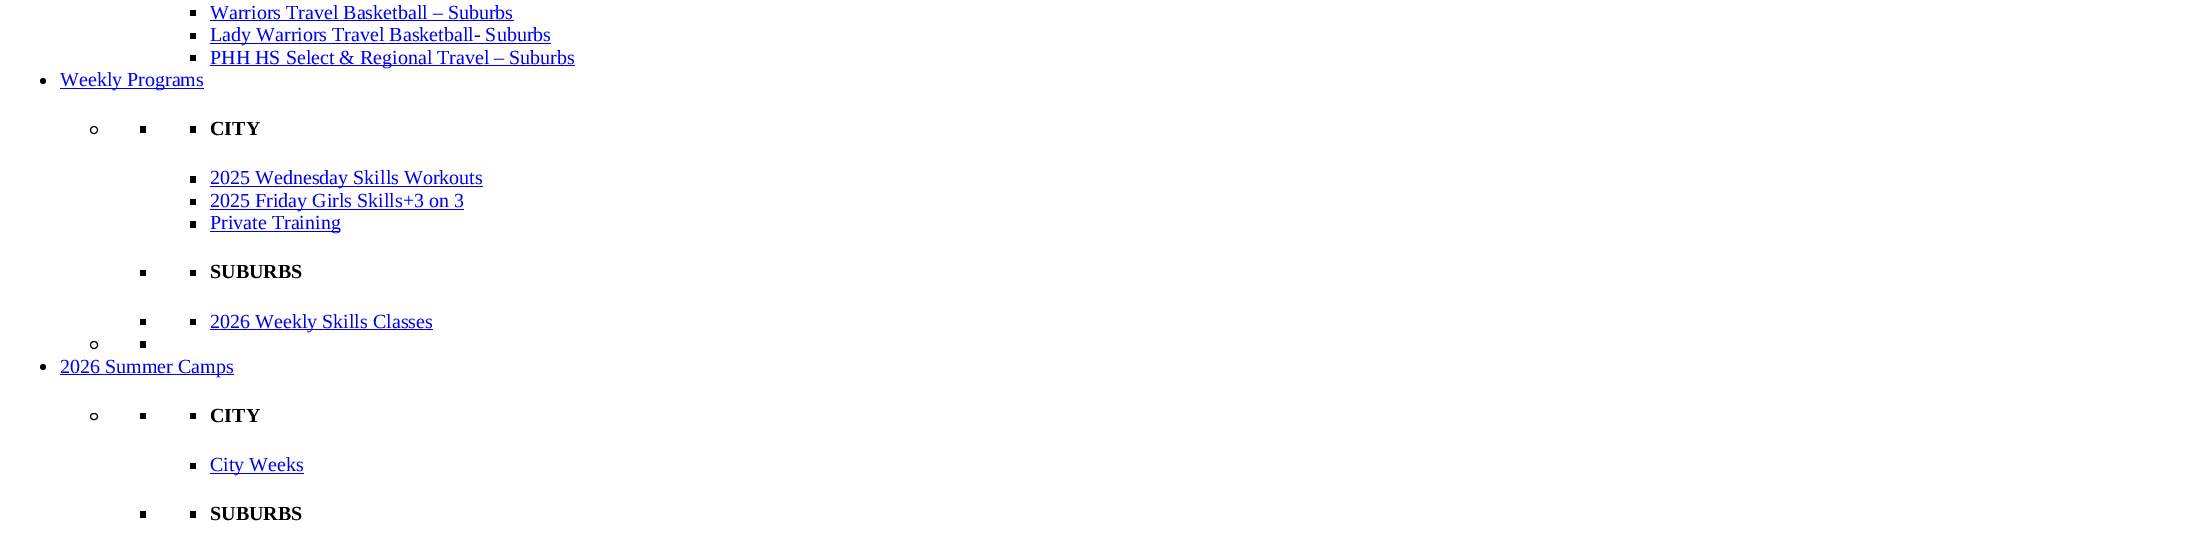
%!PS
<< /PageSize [2211 539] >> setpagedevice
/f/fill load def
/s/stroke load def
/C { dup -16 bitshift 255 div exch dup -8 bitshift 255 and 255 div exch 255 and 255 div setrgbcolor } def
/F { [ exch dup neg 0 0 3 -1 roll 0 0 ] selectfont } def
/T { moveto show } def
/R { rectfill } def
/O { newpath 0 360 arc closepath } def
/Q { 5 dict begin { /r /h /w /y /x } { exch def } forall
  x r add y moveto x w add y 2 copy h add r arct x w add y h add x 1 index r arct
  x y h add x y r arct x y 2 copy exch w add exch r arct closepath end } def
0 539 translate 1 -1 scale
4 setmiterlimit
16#FFFFFF C
0 0 2211 539 R
16#000000 C
190 10 6 6 R
/LiberationSerif-Regular 20 F
16#0000EE C
(Warriors Travel Basketball – Suburbs) 210 19 T
210 20 304 1 R
16#000000 C
190 33 6 6 R
16#0000EE C
210 43 341 1 R
(Lady Warriors Travel Basketball- Suburbs) 210 41 T
16#000000 C
190 55 6 6 R
16#0000EE C
210 65 365 1 R
(PHH HS Select & Regional Travel – Suburbs) 210 64 T
16#000000 C
43 81 3 O f
16#0000EE C
60 88 144 1 R
(Weekly Programs) 60 86 T
16#000000 C
94 130 3.5 O s
140 126 6 7 R
190 126 6 7 R
/LiberationSerif-Bold 20 F
(CITY) 210 135 T
190 176 6 7 R
16#0000EE C
210 186 273 1 R
/LiberationSerif-Regular 20 F
(2025 Wednesday Skills Workouts) 210 184 T
16#000000 C
190 199 6 6 R
16#0000EE C
210 209 254 1 R
(2025 Friday Girls Skills+3 on 3) 210 207 T
16#000000 C
190 221 6 7 R
16#0000EE C
210 231 130 1 R
(Private Training) 210 229 T
16#000000 C
140 270 6 6 R
190 270 6 6 R
/LiberationSerif-Bold 20 F
(SUBURBS) 210 278 T
140 319 6 6 R
190 319 6 6 R
16#0000EE C
210 329 223 1 R
/LiberationSerif-Regular 20 F
(2026 Weekly Skills Classes) 210 328 T
16#000000 C
94 345 3.5 O s
140 341 6 7 R
43 367 3 O f
16#0000EE C
60 374 174 1 R
(2026 Summer Camps) 60 373 T
16#000000 C
90.5 413.5 7 6 3 Q s
140 413 6 6 R
190 413 6 6 R
/LiberationSerif-Bold 20 F
(CITY) 210 422 T
190 463 6 6 R
16#0000EE C
210 473 94 1 R
/LiberationSerif-Regular 20 F
(City Weeks) 210 471 T
16#000000 C
140 511 6 7 R
190 511 6 7 R
/LiberationSerif-Bold 20 F
(SUBURBS) 210 520 T
showpage
